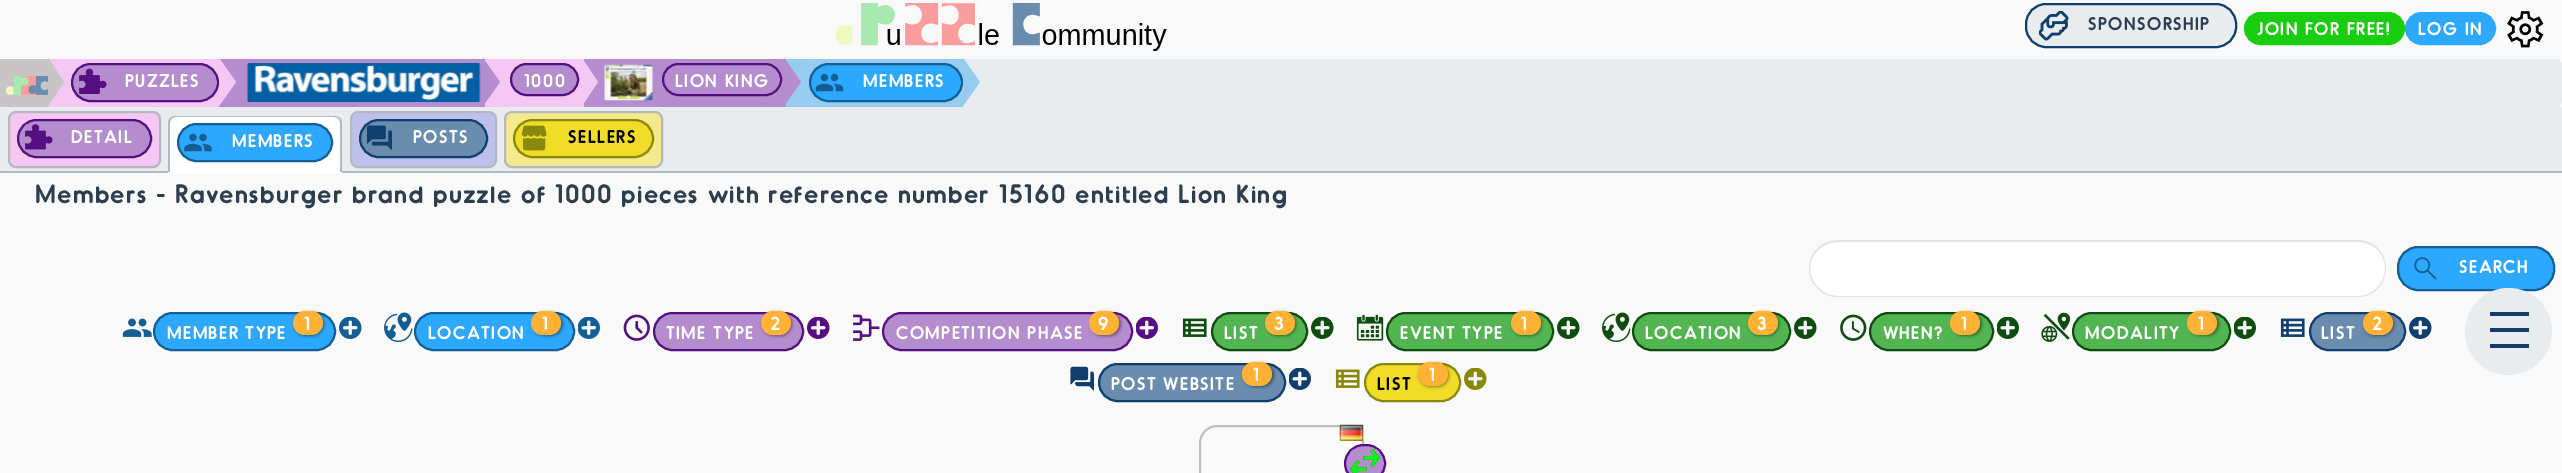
%!PS
<< /PageSize [2562 473] /PageUsesTransparency true >> setpagedevice
/m/moveto load def
/l/rlineto load def
/c/rcurveto load def
/z/closepath load def
/f/fill load def
/s/stroke load def
/q/gsave load def
/Q_/grestore load def
/w/setlinewidth load def
/C { dup -16 bitshift 255 div exch dup -8 bitshift 255 and 255 div exch 255 and 255 div setrgbcolor } def
/F { [ exch dup neg 0 0 3 -1 roll 0 0 ] selectfont } def
/R { rectfill } def
/A { dup .setfillconstantalpha .setstrokeconstantalpha } def
/O { newpath 0 360 arc closepath } def
/Q { 5 dict begin { /r /h /w /y /x } { exch def } forall
  x r add y moveto x w add y 2 copy h add r arct x w add y h add x 1 index r arct
  x y h add x y r arct x y 2 copy exch w add exch r arct closepath end } def
/S { 12 dict begin { /a /b /q /h /w /y /x } { exch def } forall gsave /was 0 def
  9 -2 -9 { dup b mul 4 div /e exch def 1 sub .425 mul 2.718 exch exp 1 add a .99 .min exch div /now exch def
    1 1 now sub 1 was sub div sub A /was now def
    w h .min e 2 mul add 0 gt { x e sub y e sub w e 2 mul add h e 2 mul add
      q e add b .6 mul add w h .min 2 div e add .min 0 .max Q fill } if } for grestore end } def
/I { 5 dict begin { /h /w /y /x /name } { exch def } forall
  gsave x y translate w h scale
  w h 8 [w 0 0 h 0 0] name (r) file false 3 colorimage grestore end } def
0 .pushpdf14devicefilter
0 473 translate 1 -1 scale
4 setmiterlimit
16#F9F9F9 C
0 0 2562 473 R
(1.rgb) 836 3 331 48 I
16#E9ECEF C
2026 4 210 43 20 Q q f Q_
16#103E6D C
2 w
s
(2.rgb) 2039 11 30 30 I
/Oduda-Bold 17.5 F
16#2C3E50 C
2088 30 m 1.5 0 (SPONSORSHIP) ashow
16#18CE0F C
2245 13 159 31 15.5 Q q f Q_
s
16#FFFFFF C
2257 35 m 1.5 0 (JOIN FOR FREE!) ashow
16#2CA8FF C
2406 13 89 31 15.5 Q q f Q_
s
16#FFFFFF C
2418 35 m 1.5 0 (LOG IN) ashow
(3.rgb) 2507 11 37 37 I
16#E9ECEF C
0 59 2562 48 6 Q f
16#C7C5C5 C
0 59 48 48 R
(4.rgb) 6 76 42 19 I
16#F5C7F5 C
48 59 171 48 R
16#C7C5C5 C
48 106 m 0 -48 l 16 24 l z f
16#B58CCE C
72 64 146 37 18.5 Q q f Q_
16#560F82 C
s
(5.rgb) 79 68 28 26 I
16#FFFFFF C
125 87 m 1.5 0 (PUZZLES) ashow
16#B58CCE C
219 59 266 48 R
16#F5C7F5 C
219 106 m 0 -48 l 17 24 l z f
(6.rgb) 247 63 234 39 I
485 59 99 48 R
16#B58CCE C
483 106 m 0 -48 l 17 24 l z f
511 64 67 31 15.5 Q q f Q_
16#560F82 C
s
16#FFFFFF C
524 87 m 1.5 0 (1000) ashow
16#B58CCE C
584 59 202 48 R
16#F5C7F5 C
582 106 m 0 -48 l 16 24 l z f
(7.rgb) 604 64 49 37 I
16#560F82 C
663 64 118 31 15.5 Q s
16#FFFFFF C
675 87 m 1.5 0 (LION KING) ashow
16#97CCF1 C
786 59 177 48 R
16#B58CCE C
784 106 m 0 -48 l 17 24 l z f
16#2CA8FF C
810 64 152 37 18.5 Q q f Q_
16#135F94 C
s
(8.rgb) 815 73 29 19 I
16#FFFFFF C
863 87 m 1.5 0 (MEMBERS) ashow
16#97CCF1 C
963 106 m 0 -48 l 17 24 l z f
16#E9ECEF C
0 107 2562 64 R
16#B6B8BF C
0 171 2562 2 R
16#F5C7F5 C
9 112 151 55 7 Q q f Q_
16#B6B8BF C
s
16#B58CCE C
18 120 133 37 18.5 Q q f Q_
16#560F82 C
s
(9.rgb) 25 124 28 26 I
16#FFFFFF C
71 143 m 1.5 0 (DETAIL) ashow
176 116 m 158 0 l 4.5 0 8 3.5 8 8 c 0 49 l -174 0 l 0 -49 l 0 -4.5 3.5 -8 8 -8 c z f
16#B6B8BF C
176 116 m 158 0 l 5 0 8 3 8 7 c 0 49 l -174 0 l 0 -49 l 0 -4 3 -7 8 -7 c z 176 117 m 158 0 l 4 0 6 3 6 6 c 0 49 l -170 0 l 0 -49 l 0 -3 2 -6 6 -6 c z eofill
16#2CA8FF C
178 124 154 37 18.5 Q q f Q_
16#135F94 C
s
(10.rgb) 184 133 28 19 I
16#FFFFFF C
232 147 m 1.5 0 (MEMBERS) ashow
16#BCC0EA C
351 112 145 55 7 Q q f Q_
16#B6B8BF C
s
16#6A8CAF C
360 120 127 37 18.5 Q q f Q_
16#103E6D C
s
(11.rgb) 367 125 25 26 I
16#FFFFFF C
413 143 m 1.5 0 (POSTS) ashow
16#F5EA8B C
505 112 157 55 7 Q q f Q_
16#B6B8BF C
s
16#F1DC28 C
514 120 139 37 18.5 Q q f Q_
16#88880D C
s
(12.rgb) 521 125 26 26 I
16#000000 C
568 143 m 1.5 0 (SELLERS) ashow
/Oduda-Bold 25.2 F
16#2C3E50 C
35 203 m 1.5 0 (Members - Ravensburger brand puzzle of 1000 pieces with reference number 15160 entitled Lion King) ashow
16#FFFFFF C
2348 240 m 10.5 0 l 15.5 0 28.5 13 28.5 28.5 c 0 15.5 -13 28.5 -28.5 28.5 c -10.5 0 l z f
16#E3E3E3 C
2348 240 m 10 0 l 16 0 28 13 28 28 c 0 16 -12 29 -28 29 c -10 0 l z 2348 242 m 10 0 l 15 0 27 12 27 26 c 0 15 -12 28 -27 28 c -10 0 l z eofill
16#FFFFFF C
1838 242 m 511 0 l 0 54 l -511 0 l -15 0 -27 -12 -27 -27 c 0 -15 12 -27 27 -27 c z f
16#E3E3E3 C
1838 240 m 511 0 l 0 57 l -511 0 l -16 0 -29 -13 -29 -29 c 0 -15 13 -28 29 -28 c z 1838 242 m 511 0 l 0 54 l -511 0 l -15 0 -28 -13 -28 -28 c 0 -14 13 -26 28 -26 c z eofill
16#2CA8FF C
2398 247 156 43 20 Q q f Q_
16#135F94 C
s
(13.rgb) 2414 257 23 23 I
/Oduda-Bold 17.5 F
16#FFFFFF C
2459 273 m 1.5 0 (SEARCH) ashow
(14.rgb) 122 318 30 19 I
16#2CA8FF C
154 313 181 37 18.5 Q q f Q_
16#135F94 C
s
16#000000 C
294 312 30 24 12 1.5 .4 S
16#FFB236 C
293 311 30 24 12 Q f
/Oduda-Bold 18 F
16#FFFFFF C
304 330 m 1.5 0 (1) ashow
/Oduda-Bold 17.5 F
167 339 m 1.5 0 (MEMBER TYPE) ashow
(15.rgb) 339 317 23 22 I
(16.rgb) 384 312 29 30 I
16#2CA8FF C
415 313 159 37 18.5 Q q f Q_
16#135F94 C
s
16#000000 C
533 312 30 24 12 1.5 .4 S
16#FFB236 C
531 311 30 24 12 Q f
/Oduda-Bold 18 F
16#FFFFFF C
542 330 m 1.5 0 (1) ashow
/Oduda-Bold 17.5 F
428 339 m 1.5 0 (LOCATION) ashow
(17.rgb) 578 317 22 22 I
(18.rgb) 623 314 27 27 I
16#B58CCE C
654 313 149 37 18.5 Q q f Q_
16#560F82 C
s
16#000000 C
762 312 30 24 12 1.5 .4 S
16#FFB236 C
761 311 30 24 12 Q f
/Oduda-Bold 18 F
16#FFFFFF C
770 330 m 1.5 0 (2) ashow
/Oduda-Bold 17.5 F
666 339 m 1.5 0 (TIME TYPE) ashow
(19.rgb) 807 317 23 22 I
(20.rgb) 853 314 27 27 I
16#B58CCE C
883 313 249 37 18.5 Q q f Q_
16#560F82 C
s
16#000000 C
1091 312 30 24 12 1.5 .4 S
16#FFB236 C
1089 311 30 24 12 Q f
/Oduda-Bold 18 F
16#FFFFFF C
1098 330 m 1.5 0 (9) ashow
/Oduda-Bold 17.5 F
896 339 m 1.5 0 (COMPETITION PHASE) ashow
(21.rgb) 1136 317 22 22 I
(22.rgb) 1182 318 25 19 I
16#52B552 C
1212 313 95 37 18.5 Q q f Q_
16#0F4C0F C
s
16#000000 C
1266 312 30 24 12 1.5 .4 S
16#FFB236 C
1265 311 30 24 12 Q f
/Oduda-Bold 18 F
16#FFFFFF C
1274 330 m 1.5 0 (3) ashow
/Oduda-Bold 17.5 F
1224 339 m 1.5 0 (LIST) ashow
(23.rgb) 1311 317 23 22 I
(24.rgb) 1356 314 28 27 I
16#52B552 C
1387 313 166 37 18.5 Q q f Q_
16#0F4C0F C
s
16#000000 C
1512 312 30 24 12 1.5 .4 S
16#FFB236 C
1511 311 30 24 12 Q f
/Oduda-Bold 18 F
16#FFFFFF C
1521 330 m 1.5 0 (1) ashow
/Oduda-Bold 17.5 F
1400 339 m 1.5 0 (EVENT TYPE) ashow
(23.rgb) 1557 317 23 22 I
(25.rgb) 1602 312 29 30 I
16#52B552 C
1633 313 157 37 18.5 Q q f Q_
16#0F4C0F C
s
16#000000 C
1749 312 30 24 12 1.5 .4 S
16#FFB236 C
1748 311 30 24 12 Q f
/Oduda-Bold 18 F
16#FFFFFF C
1757 330 m 1.5 0 (3) ashow
/Oduda-Bold 17.5 F
1645 339 m 1.5 0 (LOCATION) ashow
(23.rgb) 1794 317 23 22 I
(26.rgb) 1840 314 27 27 I
16#52B552 C
1870 313 123 37 18.5 Q q f Q_
16#0F4C0F C
s
16#000000 C
1952 312 30 24 12 1.5 .4 S
16#FFB236 C
1950 311 30 24 12 Q f
/Oduda-Bold 18 F
16#FFFFFF C
1961 330 m 1.5 0 (1) ashow
/Oduda-Bold 17.5 F
1883 339 m 1.5 0 (WHEN?) ashow
(27.rgb) 1997 317 22 22 I
(28.rgb) 2041 312 30 30 I
16#52B552 C
2073 313 157 37 18.5 Q q f Q_
16#0F4C0F C
s
16#000000 C
2189 312 30 24 12 1.5 .4 S
16#FFB236 C
2187 311 30 24 12 Q f
/Oduda-Bold 18 F
16#FFFFFF C
2198 330 m 1.5 0 (1) ashow
/Oduda-Bold 17.5 F
2085 339 m 1.5 0 (MODALITY) ashow
(27.rgb) 2234 317 22 22 I
(29.rgb) 2280 318 25 19 I
16#6A8CAF C
2310 313 95 37 18.5 Q q f Q_
16#103E6D C
s
16#000000 C
2364 312 30 24 12 1.5 .4 S
16#FFB236 C
2363 311 30 24 12 Q f
/Oduda-Bold 18 F
16#FFFFFF C
2372 330 m 1.5 0 (2) ashow
/Oduda-Bold 17.5 F
2321 339 m 1.5 0 (LIST) ashow
(30.rgb) 2409 317 23 22 I
(31.rgb) 1070 366 24 25 I
16#6A8CAF C
1099 364 186 37 18.5 Q q f Q_
16#103E6D C
s
16#000000 C
1244 363 30 24 12 1.5 .4 S
16#FFB236 C
1242 362 30 24 12 Q f
/Oduda-Bold 18 F
16#FFFFFF C
1253 381 m 1.5 0 (1) ashow
/Oduda-Bold 17.5 F
1111 390 m 1.5 0 (POST WEBSITE) ashow
(32.rgb) 1289 368 22 22 I
(33.rgb) 1335 369 25 19 I
16#F1DC28 C
1365 364 95 37 18.5 Q q f Q_
16#88880D C
s
16#000000 C
1419 363 30 24 12 1.5 .4 S
16#FFB236 C
1418 362 30 24 12 Q f
/Oduda-Bold 18 F
16#FFFFFF C
1429 381 m 1.5 0 (1) ashow
/Oduda-Bold 17.5 F
16#000000 C
1377 390 m 1.5 0 (LIST) ashow
(34.rgb) 1464 368 23 22 I
16#C0C0C0 C
1200 426 163 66 17 Q s
(35.rgb) 1339 424 25 17 I
16#B58CCE C
1345 445 40 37 18.5 Q q f Q_
16#560F82 C
s
(36.rgb) 1350 449 30 24 I
16#E9ECEF C
2508.5 331.5 43.5 O f
q
2481 294 48 57 rectclip
16#103E6D C
2490 348 m 0 -4 l 54 0 l 0 4 l z 2490 332 m 0 -4 l 54 0 l 0 4 l z 2490 316 m 0 -4 l 54 0 l 0 4 l z f
Q_
.poppdf14devicefilter showpage
